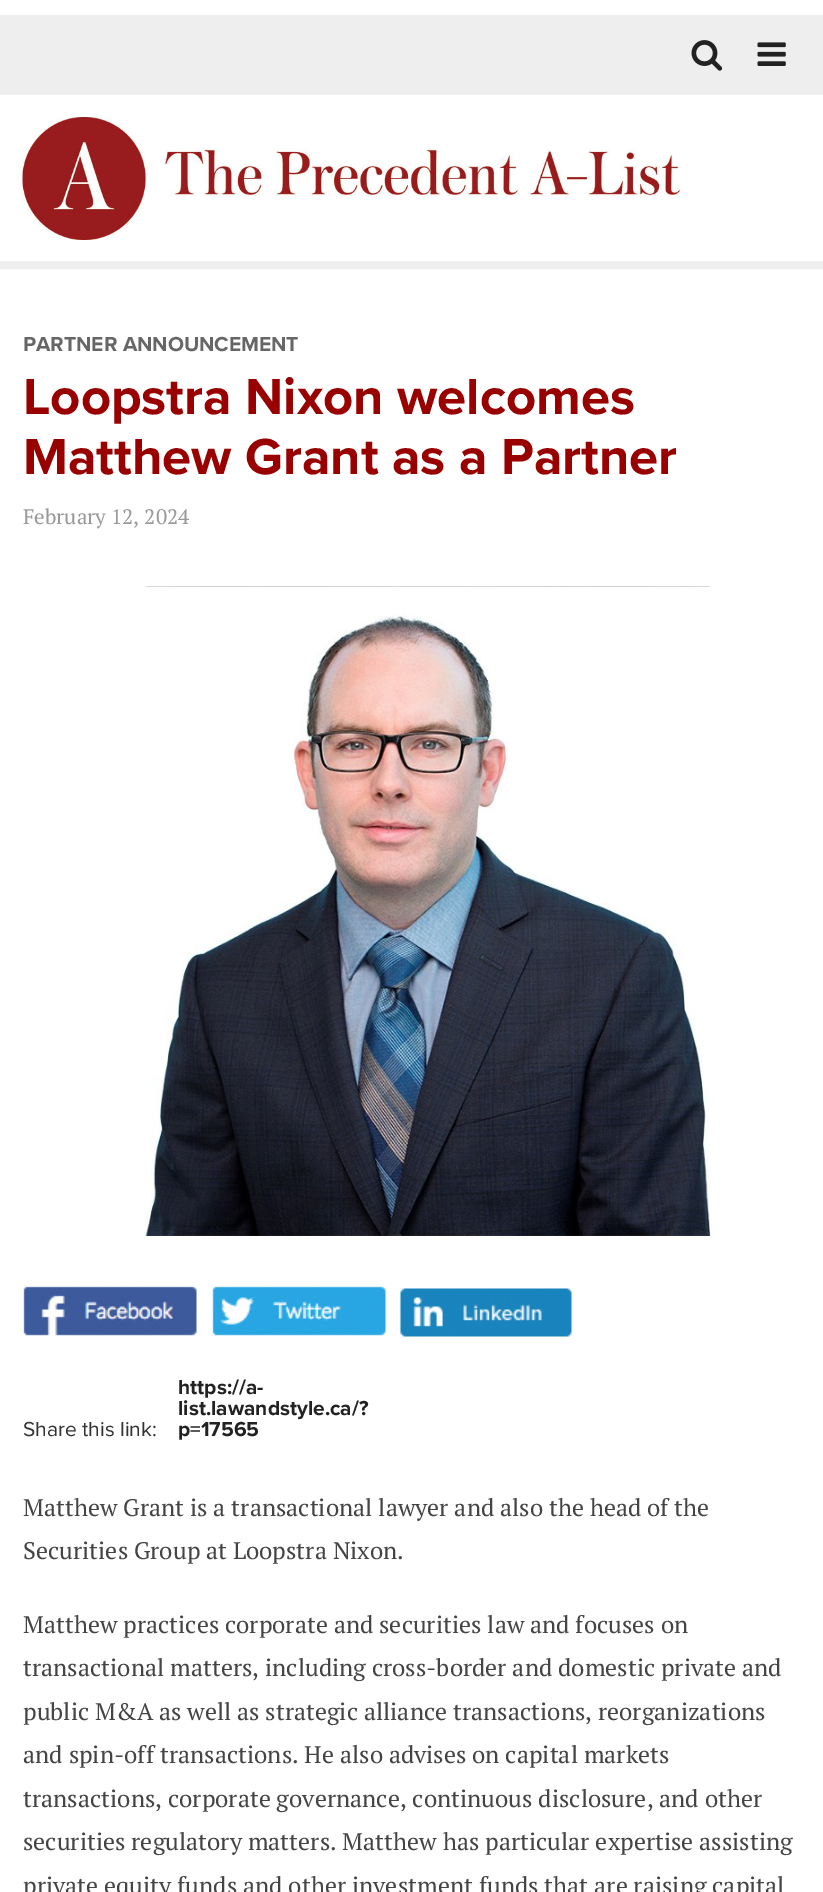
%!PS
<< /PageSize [823 1892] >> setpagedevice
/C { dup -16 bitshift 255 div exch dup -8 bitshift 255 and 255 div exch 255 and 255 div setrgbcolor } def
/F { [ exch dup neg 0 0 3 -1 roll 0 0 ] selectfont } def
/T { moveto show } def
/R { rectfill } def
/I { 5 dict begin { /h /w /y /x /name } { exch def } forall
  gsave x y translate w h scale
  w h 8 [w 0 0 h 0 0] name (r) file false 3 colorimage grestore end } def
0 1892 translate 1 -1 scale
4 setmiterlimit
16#FFFFFF C
0 0 823 1892 R
16#EEEEEE C
0 15 823 80 R
(1.rgb) 691 40 32 31 I
(2.rgb) 757 42 29 24 I
0 261 823 8 R
(3.rgb) 22 117 662 123 I
/ProximaNova-Bold 21 F
16#666666 C
(PARTNER ANNOUNCEMENT) 23 351 T
/ProximaNova-Bold 52.5 F
16#990000 C
(Loopstra Nixon welcomes) 23 414 T
(Matthew Grant as a Partner) 23 474 T
/PTSerif-Regular 21 F
16#999999 C
(February 12, 2024) 23 524 T
(4.rgb) 144 586 567 650 I
(5.rgb) 23 1286 174 50 I
(6.rgb) 212 1286 174 50 I
(7.rgb) 400 1288 172 49 I
/ProximaNova-Regular 21 F
16#333333 C
(Share this link:) 23 1436 T
/ProximaNova-Bold 21 F
16#222222 C
(https://a-) 178 1394 T
(list.lawandstyle.ca/?) 178 1415 T
(p=17565) 178 1436 T
/PTSerif-Regular 24 F
16#444444 C
(Matthew Grant is a transactional lawyer and also the head of the) 23 1516 T
(Securities Group at Loopstra Nixon.) 23 1559 T
(Matthew practices corporate and securities law and focuses on) 23 1633 T
(transactional matters, including cross-border and domestic private and) 23 1676 T
(public M&A as well as strategic alliance transactions, reorganizations) 23 1720 T
(and spin-off transactions. He also advises on capital markets) 23 1763 T
(transactions, corporate governance, continuous disclosure, and other) 23 1807 T
(securities regulatory matters. Matthew has particular expertise assisting) 23 1850 T
(private equity funds and other investment funds that are raising capital) 23 1894 T
showpage
